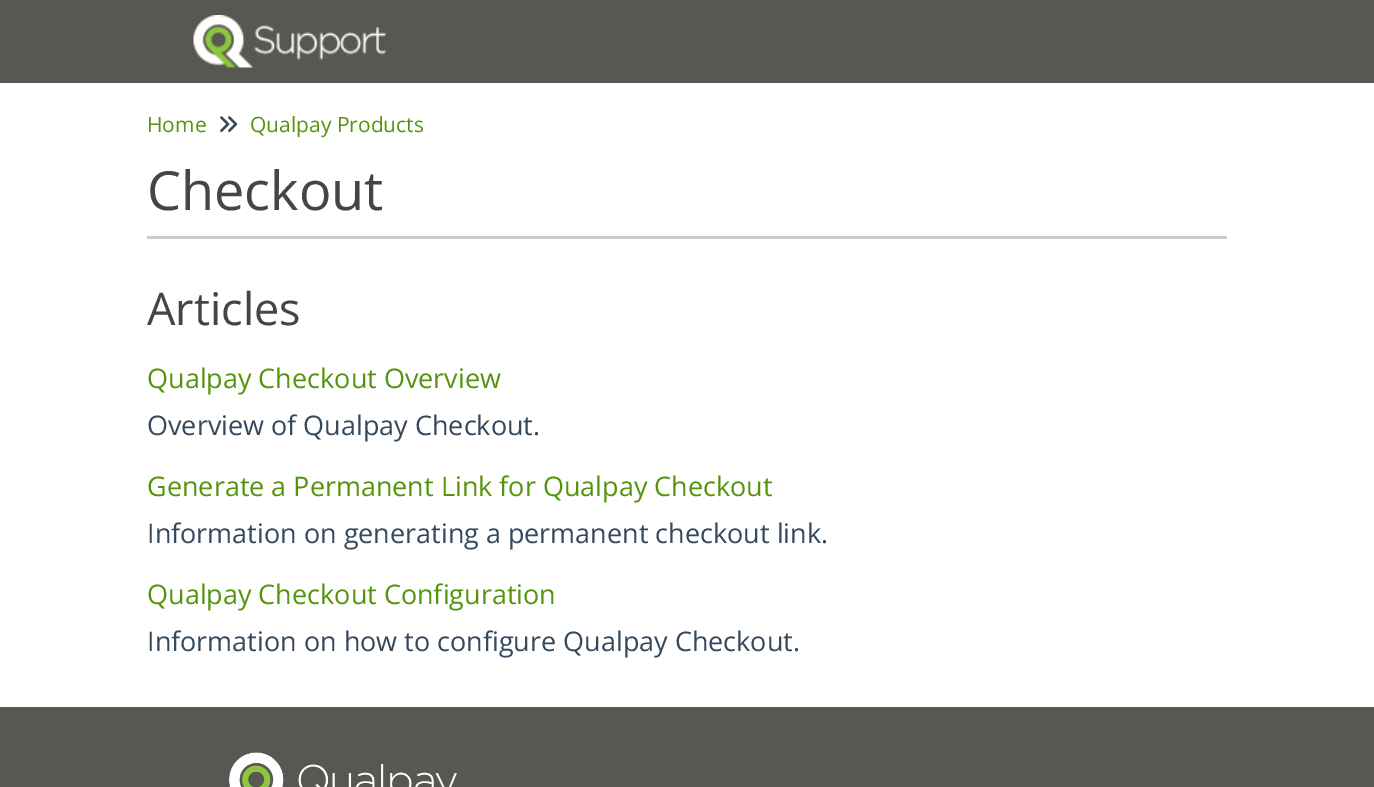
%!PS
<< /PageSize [1374 787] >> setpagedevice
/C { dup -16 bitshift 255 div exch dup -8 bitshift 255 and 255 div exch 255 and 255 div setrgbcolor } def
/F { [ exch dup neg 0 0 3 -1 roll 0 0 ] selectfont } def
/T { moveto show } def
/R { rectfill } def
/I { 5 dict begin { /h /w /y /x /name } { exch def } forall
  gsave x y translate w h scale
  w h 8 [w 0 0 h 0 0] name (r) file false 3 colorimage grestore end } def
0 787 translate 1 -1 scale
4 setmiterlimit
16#FFFFFF C
0 0 1374 787 R
16#585852 C
0 0 1374 83 R
(1.rgb) 193 15 193 53 I
/OpenSans-Regular 21 F
16#54940C C
(Home) 147 132 T
(2.rgb) 220 116 18 16 I
(Qualpay Products) 250 132 T
16#CCCCCC C
147 236 1080 3 R
/OpenSans-Regular 54 F
16#484444 C
(Checkout) 147 210 T
/OpenSans-Regular 45 F
(Articles) 147 325 T
/OpenSans-Regular 27 F
16#54940C C
(Qualpay Checkout Overview) 147 388 T
16#34495E C
(Overview of Qualpay Checkout.) 147 435 T
16#54940C C
(Generate a Permanent Link for Qualpay Checkout) 147 496 T
16#34495E C
(Information on generating a permanent checkout link.) 147 543 T
16#54940C C
(Qualpay Checkout Configuration) 147 604 T
16#34495E C
(Information on how to configure Qualpay Checkout.) 147 651 T
16#585852 C
0 707 1374 80 R
(3.rgb) 229 752 228 35 I
showpage
